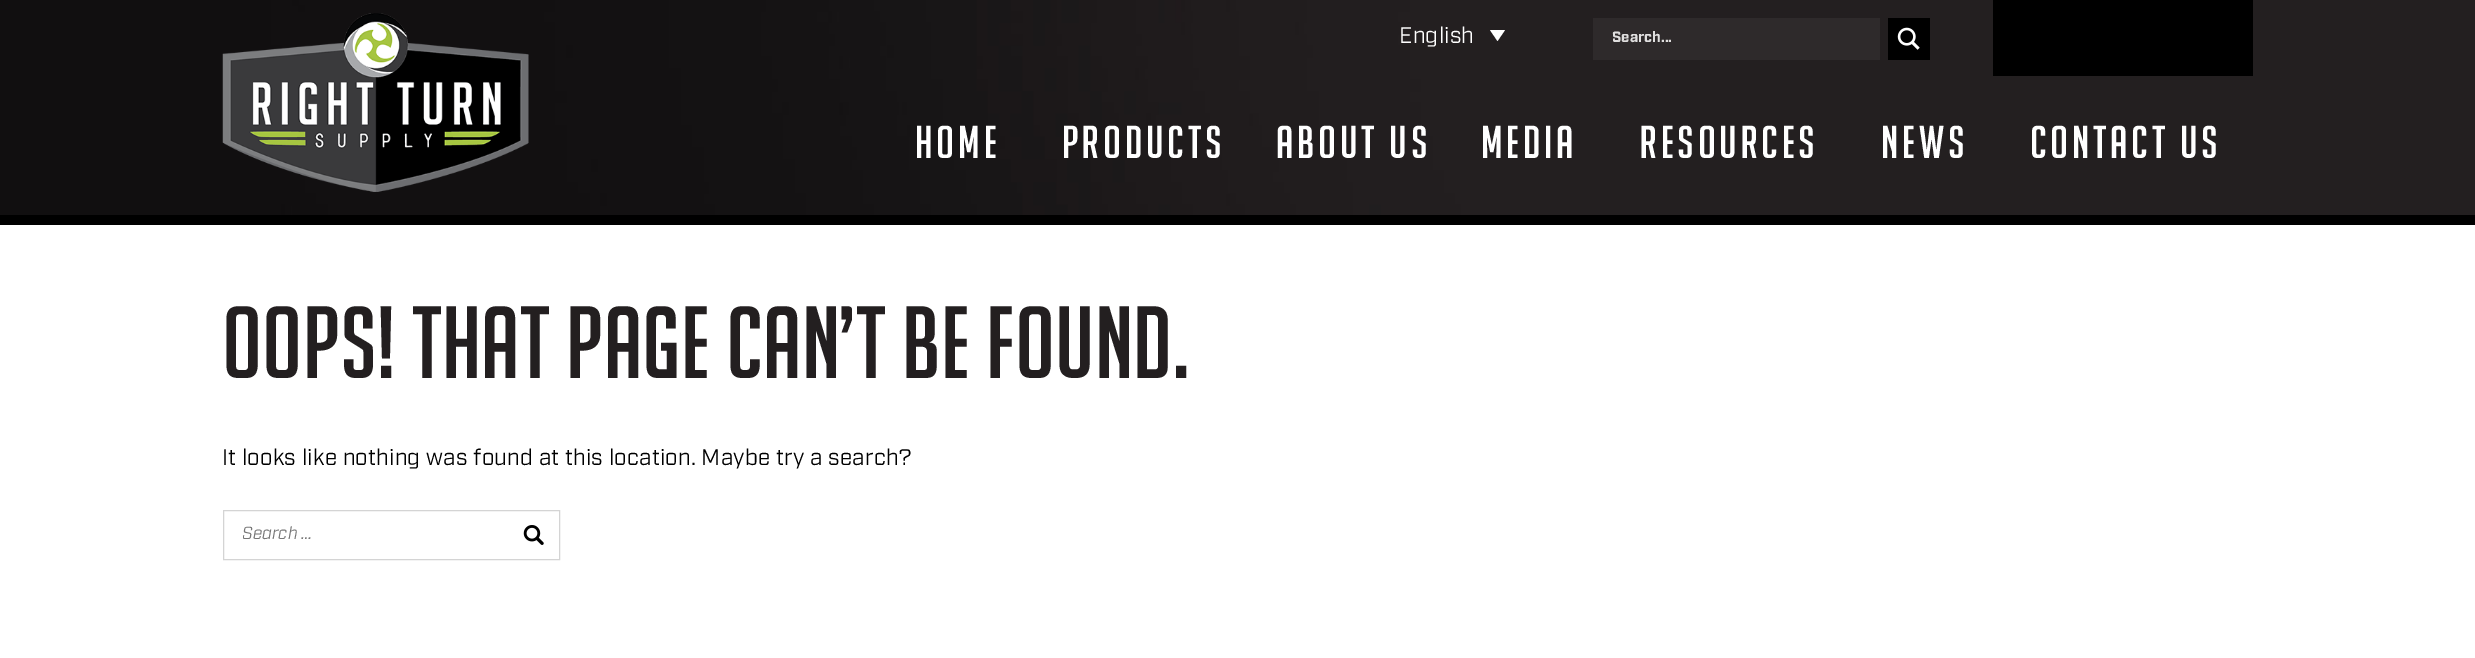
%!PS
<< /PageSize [2475 658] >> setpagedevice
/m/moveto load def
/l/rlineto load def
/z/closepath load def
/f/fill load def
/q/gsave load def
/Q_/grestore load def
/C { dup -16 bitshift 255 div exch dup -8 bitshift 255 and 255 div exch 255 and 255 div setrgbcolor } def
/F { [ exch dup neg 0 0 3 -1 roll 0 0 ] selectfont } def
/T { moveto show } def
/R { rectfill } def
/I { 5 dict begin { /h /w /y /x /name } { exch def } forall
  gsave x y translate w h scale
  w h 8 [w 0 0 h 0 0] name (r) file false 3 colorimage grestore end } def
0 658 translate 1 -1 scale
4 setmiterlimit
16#FFFFFF C
0 0 2475 658 R
16#000000 C
0 215 2475 10 R
(1.rgb) 0 0 2475 215 I
(2.rgb) 222 13 307 179 I
/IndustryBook-Regular 22.5 F
16#FFFFFF C
1399 43 m .22 0 (English) ashow
1490 30 m 15 0 l -7.5 11 l z f
16#2E2A2B C
1593 18 287 42 R
/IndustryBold-Bold 15 F
16#E0DFDF C
(Search...) 1612 42 T
16#000000 C
1888 18 42 42 R
(3.rgb) 1897 27 23 23 I
1993 0 260 76 R
/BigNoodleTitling-Regular 45 F
16#FFFFFF C
915 158 m 3.75 0 (Home) ashow
1062 158 m 3.75 0 (Products) ashow
1276 158 m 3.75 0 (About Us) ashow
1481 158 m 3.75 0 (Media) ashow
1640 158 m 3.75 0 (Resources) ashow
1881 158 m 3.75 0 (News) ashow
2030 158 m 3.75 0 (Contact Us) ashow
/BigNoodleTitling-Regular 100 F
16#231F20 C
222 378 m .22 0 (OOPS! THAT PAGE CAN’T BE FOUND.) ashow
/IndustryBook-Regular 22.5 F
16#000000 C
222 465 m .22 0 (It looks like nothing was found at this location. Maybe try a search?) ashow
16#D4D4D4 C
223.5 510.5 336 49 rectstroke
q
243 525 261 19 rectclip
/IndustryBook-Italic 17.5 F
16#777777 C
(Search …) 242 539 T
Q_
(4.rgb) 523 525 21 20 I
showpage
